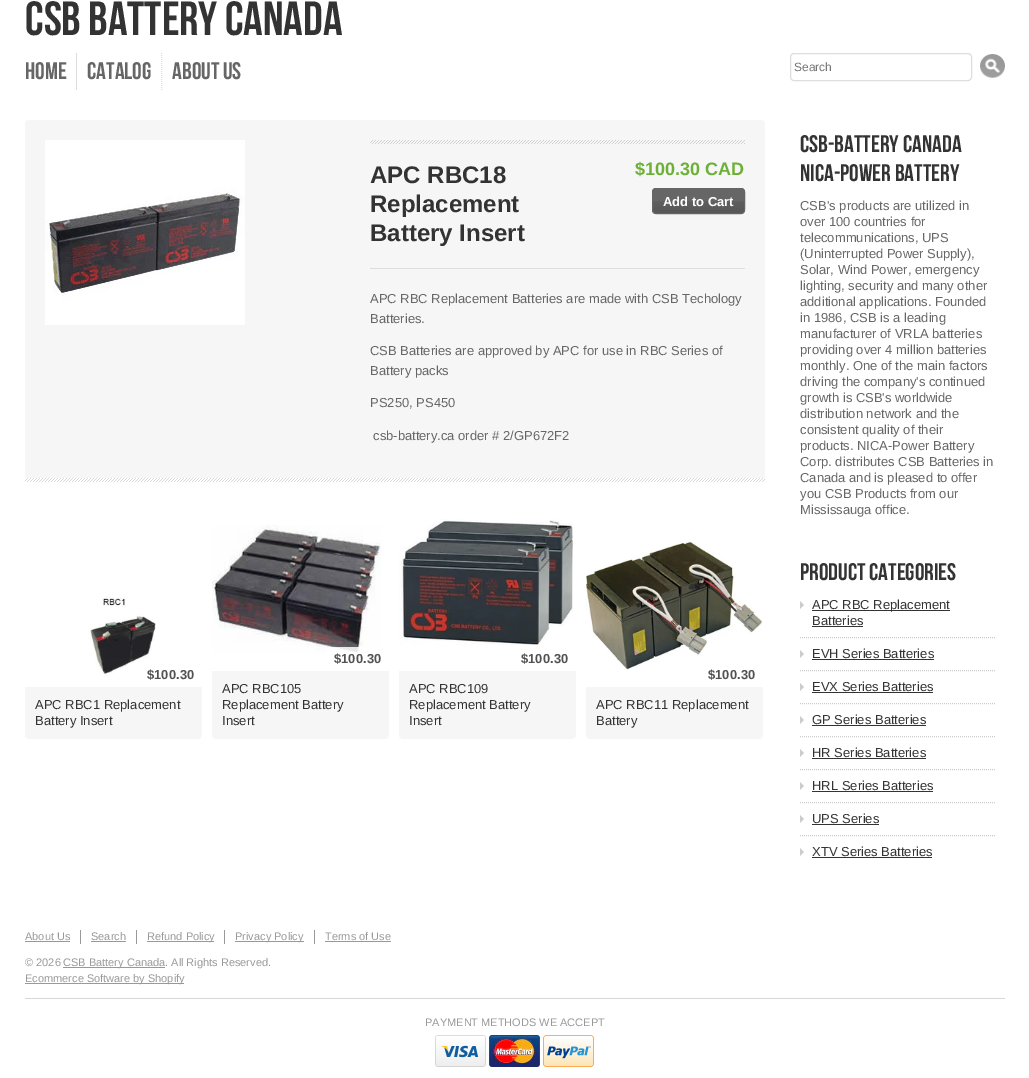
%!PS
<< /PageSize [1029 1078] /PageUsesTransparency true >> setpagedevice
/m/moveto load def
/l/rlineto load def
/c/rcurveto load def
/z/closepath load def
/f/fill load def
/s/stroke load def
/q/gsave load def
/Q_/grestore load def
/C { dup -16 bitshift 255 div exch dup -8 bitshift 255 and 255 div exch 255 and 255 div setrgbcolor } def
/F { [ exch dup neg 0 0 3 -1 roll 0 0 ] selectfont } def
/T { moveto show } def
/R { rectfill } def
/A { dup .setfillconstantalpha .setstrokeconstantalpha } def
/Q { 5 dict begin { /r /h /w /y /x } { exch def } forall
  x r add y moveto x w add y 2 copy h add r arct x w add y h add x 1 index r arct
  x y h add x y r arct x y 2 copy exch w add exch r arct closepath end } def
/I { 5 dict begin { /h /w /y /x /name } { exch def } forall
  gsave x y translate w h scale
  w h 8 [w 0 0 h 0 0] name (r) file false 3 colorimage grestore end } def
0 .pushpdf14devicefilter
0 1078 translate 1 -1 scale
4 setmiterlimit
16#FFFFFF C
0 0 1029 1078 R
/BebasNeue-Regular 48 F
16#333333 C
(CSB Battery Canada) 25 35 T
16#DDDDDD C
76 53 1 37 R
/BebasNeue-Regular 24 F
16#666666 C
(Home) 25 79 T
16#DDDDDD C
[1 1] 0 setdash
161.5 53 m 0 37 l s
16#666666 C
(Catalog) 87 79 T
(About Us) 172 79 T
16#DDDDDD C
[] 0 setdash
790.5 53.5 181 27 3.5 Q s
/LiberationSans-Regular 12 F
16#757575 C
(Search) 794 71 T
(1.rgb) 980 54 25 24 I
16#F6F6F6 C
29 120 m 732 0 l 2 0 4 2 4 4 c 0 354 l -740 0 l 0 -354 l 0 -2 2 -4 4 -4 c z f
(2.rgb) 45 140 200 185 I
(3.rgb) 370 140 375 4 I
16#DDDDDD C
370 268 375 1 R
/LiberationSans-Bold 24 F
16#333333 C
(APC RBC18) 370 183 T
(Replacement) 370 212 T
(Battery Insert) 370 241 T
/LiberationSans-Bold 18 F
16#6DB038 C
($100.30 CAD) 635 175 T
16#666666 C
652 188 93 26 4 Q f
(4.rgb) 652 201 93 12 I
652.5 188.5 92 25 3.5 Q s
/LiberationSans-Bold 13 F
16#FFFFFF C
(Add to Cart) 663 206 T
/LiberationSans-Regular 13 F
16#666666 C
(APC RBC Replacement Batteries are made with CSB Techology) 370 303 T
(Batteries.) 370 323 T
(CSB Batteries are approved by APC for use in RBC Series of) 370 355 T
(Battery packs) 370 375 T
(PS250, PS450) 370 407 T
(csb-battery.ca order # 2/GP672F2) 373 440 T
(5.rgb) 25 478 740 4 I
(6.rgb) 90 597 66 79 I
/LiberationSans-Bold 13 F
16#525252 C
($100.30) 147 679 T
16#F6F6F6 C
25 687 m 177 0 l 0 48 l 0 2 -2 4 -4 4 c -169 0 l -2 0 -4 -2 -4 -4 c z f
/LiberationSans-Regular 13 F
16#333333 C
(APC RBC1 Replacement) 35 709 T
(Battery Insert) 35 725 T
(7.rgb) 212 525 169 128 I
0.85 A
16#FFFFFF C
330 647 m 59 0 l 0 24 l -63 0 l 0 -20 l 0 -2 2 -4 4 -4 c z f
/LiberationSans-Bold 13 F
1 A
16#525252 C
($100.30) 334 663 T
16#F6F6F6 C
212 671 m 177 0 l 0 64 l 0 2 -2 4 -4 4 c -169 0 l -2 0 -4 -2 -4 -4 c z f
/LiberationSans-Regular 13 F
16#333333 C
(APC RBC105) 222 693 T
(Replacement Battery) 222 709 T
(Insert) 222 725 T
(8.rgb) 399 519 174 126 I
/LiberationSans-Bold 13 F
16#525252 C
($100.30) 521 663 T
16#F6F6F6 C
399 671 m 177 0 l 0 64 l 0 2 -2 4 -4 4 c -169 0 l -2 0 -4 -2 -4 -4 c z f
/LiberationSans-Regular 13 F
16#333333 C
(APC RBC109) 409 693 T
(Replacement Battery) 409 709 T
(Insert) 409 725 T
(9.rgb) 586 541 176 129 I
/LiberationSans-Bold 13 F
16#525252 C
($100.30) 708 679 T
16#F6F6F6 C
586 687 m 177 0 l 0 48 l 0 2 -2 4 -4 4 c -169 0 l -2 0 -4 -2 -4 -4 c z f
/LiberationSans-Regular 13 F
16#333333 C
(APC RBC11 Replacement) 596 709 T
(Battery) 596 725 T
/BebasNeue-Regular 24 F
(CSB-Battery Canada) 800 152 T
(NICA-Power Battery) 800 181 T
/LiberationSans-Regular 13 F
16#666666 C
(CSB's products are utilized in) 800 210 T
(over 100 countries for) 800 226 T
(telecommunications, UPS) 800 242 T
(\(Uninterrupted Power Supply\),) 800 258 T
(Solar, Wind Power, emergency) 800 274 T
(lighting, security and many other) 800 290 T
(additional applications. Founded) 800 306 T
(in 1986, CSB is a leading) 800 322 T
(manufacturer of VRLA batteries) 800 338 T
(providing over 4 million batteries) 800 354 T
(monthly. One of the main factors) 800 370 T
(driving the company's continued) 800 386 T
(growth is CSB's worldwide) 800 402 T
(distribution network and the) 800 418 T
(consistent quality of their) 800 434 T
(products. NICA-Power Battery) 800 450 T
(Corp. distributes CSB Batteries in) 800 466 T
(Canada and is pleased to offer) 800 482 T
(you CSB Products from our) 800 498 T
(Mississauga office.) 800 514 T
/BebasNeue-Regular 24 F
16#333333 C
(Product Categories) 800 580 T
16#CCCCCC C
[1 1] 0 setdash
800 637.5 m 195 0 l s
800 609 m 0 -8 l 4 4 l z 800 658 m 0 -8 l 4 4 l z f
16#333333 C
812 610 138 1 R
/LiberationSans-Regular 13 F
(APC RBC Replacement) 812 609 T
(Batteries) 812 625 T
812 626 51 1 R
(EVH Series Batteries) 812 658 T
812 659 122 1 R
16#CCCCCC C
800 670.5 m 195 0 l s
800 703.5 m 195 0 l s
800 691 m 0 -8 l 4 4 l z 800 724 m 0 -8 l 4 4 l z f
16#333333 C
(EVX Series Batteries) 812 691 T
812 692 121 1 R
(GP Series Batteries) 812 724 T
812 725 114 1 R
16#CCCCCC C
800 736.5 m 195 0 l s
800 769.5 m 195 0 l s
800 757 m 0 -8 l 4 4 l z 800 790 m 0 -8 l 4 4 l z f
16#333333 C
(HR Series Batteries) 812 757 T
812 758 114 1 R
(HRL Series Batteries) 812 790 T
812 791 121 1 R
16#CCCCCC C
800 802.5 m 195 0 l s
800 835.5 m 195 0 l s
800 823 m 0 -8 l 4 4 l z 800 856 m 0 -8 l 4 4 l z f
16#333333 C
(UPS Series) 812 823 T
812 824 67 1 R
(XTV Series Batteries) 812 856 T
812 857 120 1 R
/LiberationSans-Regular 11 F
16#999999 C
(About Us) 25 940 T
25 941 45 1 R
80 930 1 14 R
(Search) 91 940 T
91 941 35 1 R
136 930 1 14 R
147 941 67 1 R
(Refund Policy) 147 940 T
224 930 1 14 R
235 941 69 1 R
(Privacy Policy) 235 940 T
314 930 1 14 R
(Terms of Use) 325 940 T
325 941 66 1 R
q
25 915 980 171 rectclip
(© 2026) 25 966 T
Q_
63 967 102 1 R
(CSB Battery Canada. All Rights Reserved.) 63 966 T
25 983 159 1 R
(Ecommerce Software by Shopify) 25 982 T
16#D7D7D7 C
25 998 980 1 R
16#999999 C
(PAYMENT METHODS WE ACCEPT) 425 1026 T
(10.rgb) 435 1035 51 32 I
(11.rgb) 489 1035 51 32 I
(12.rgb) 543 1035 51 32 I
.poppdf14devicefilter showpage
